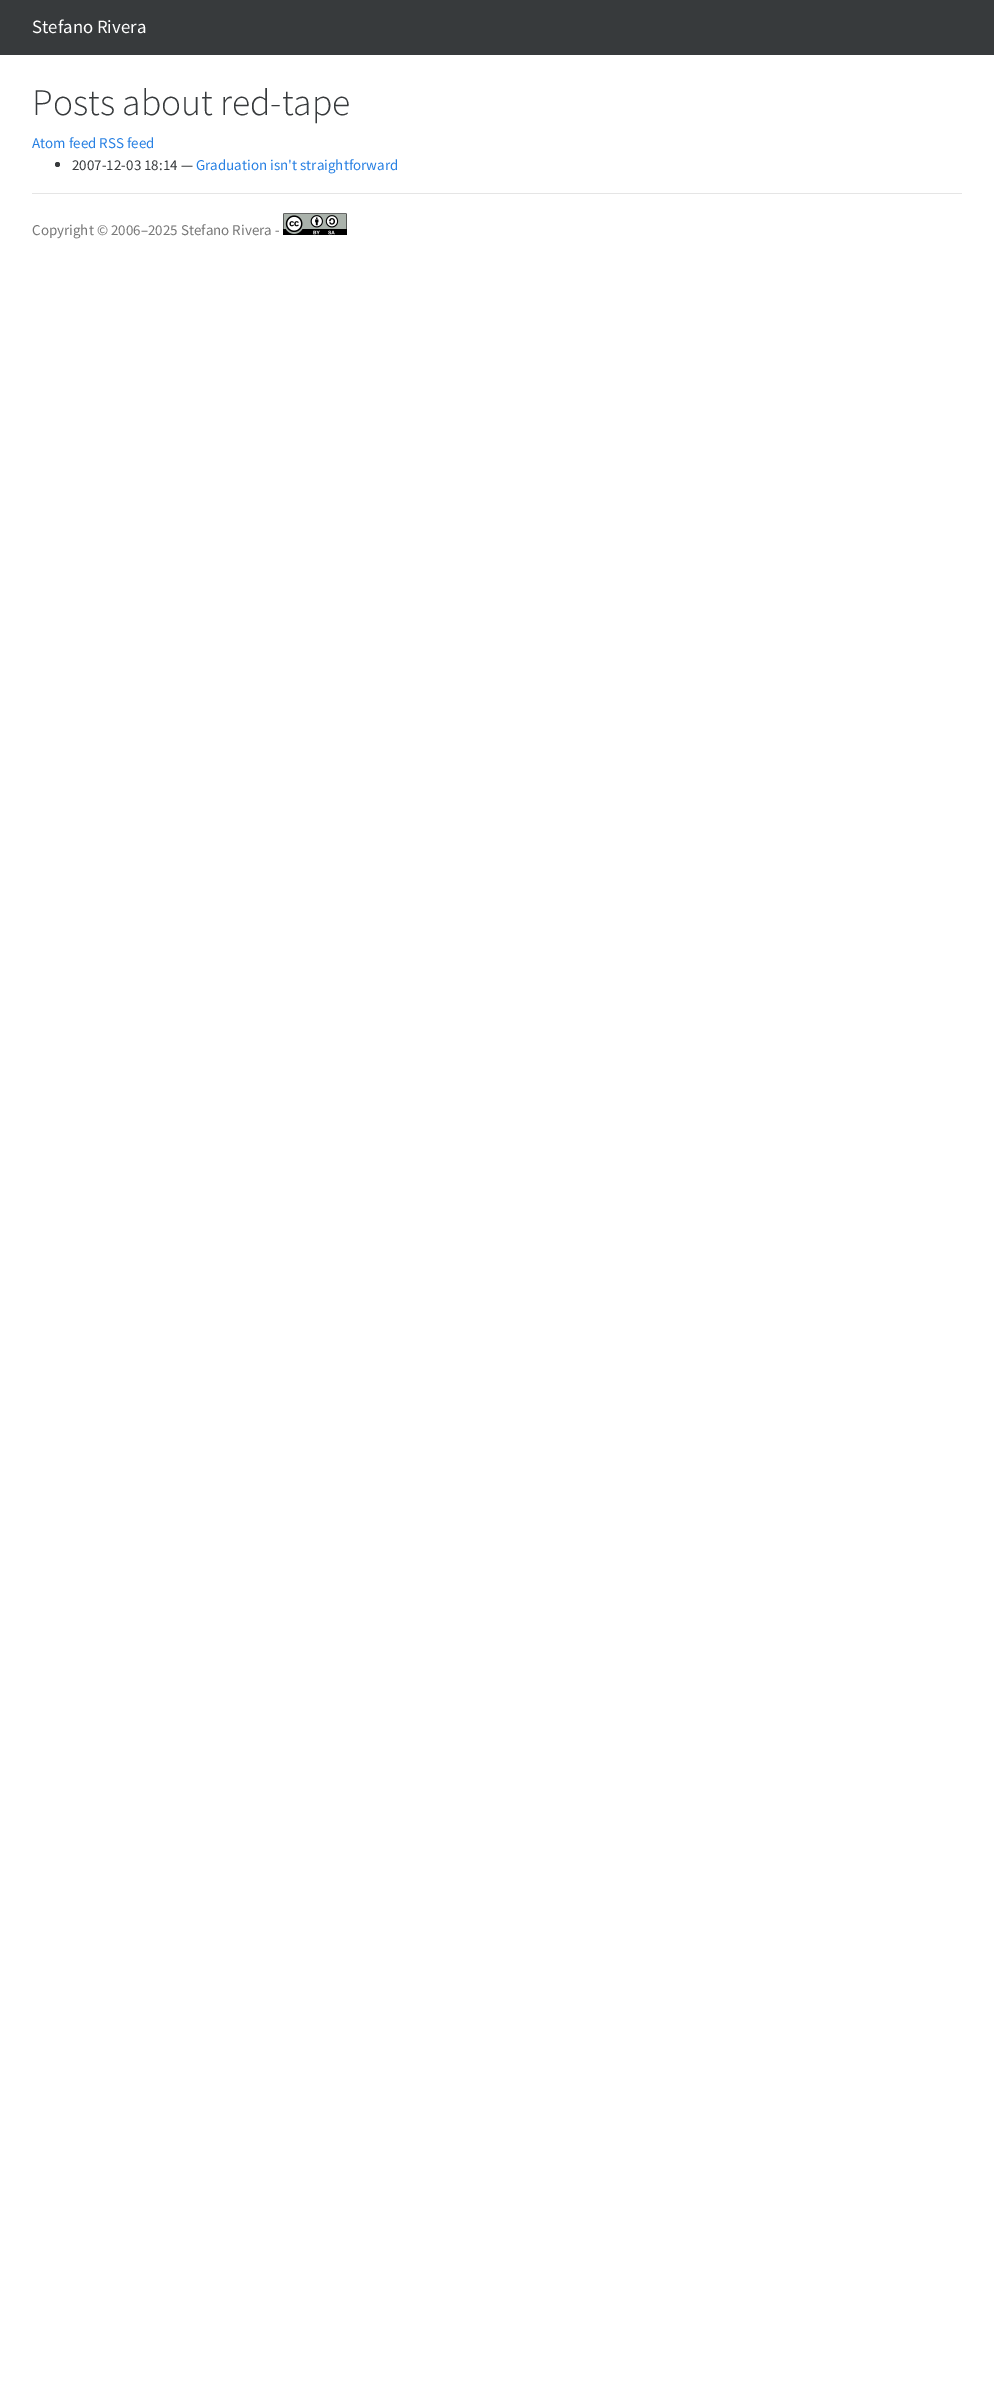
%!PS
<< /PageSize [994 2401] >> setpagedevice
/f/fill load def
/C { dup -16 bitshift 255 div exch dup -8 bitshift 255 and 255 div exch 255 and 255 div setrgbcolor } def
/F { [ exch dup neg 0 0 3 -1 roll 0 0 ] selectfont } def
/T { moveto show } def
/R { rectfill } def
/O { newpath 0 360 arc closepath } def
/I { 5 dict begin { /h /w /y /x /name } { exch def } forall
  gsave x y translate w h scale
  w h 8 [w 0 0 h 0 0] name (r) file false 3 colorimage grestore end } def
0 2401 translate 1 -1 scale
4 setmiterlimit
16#FFFFFF C
0 0 994 2401 R
16#373A3C C
0 0 994 55 R
/SourceSansPro-Regular 18.75 F
16#FFFFFF C
(Stefano Rivera) 32 33 T
/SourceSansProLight-Light 37.5 F
16#373A3C C
(Posts about red-tape) 32 115 T
/SourceSansPro-Regular 15 F
16#2780E3 C
(Atom feed RSS feed) 32 148 T
16#373A3C C
57.5 164.5 2.5 O f
(2007-12-03 18:14 —) 72 170 T
16#2780E3 C
(Graduation isn't straightforward) 196 170 T
16#E5E5E5 C
32 193 930 1 R
16#777777 C
(Copyright © 2006–2025 Stefano Rivera -) 32 235 T
(1.rgb) 283 213 64 22 I
showpage
